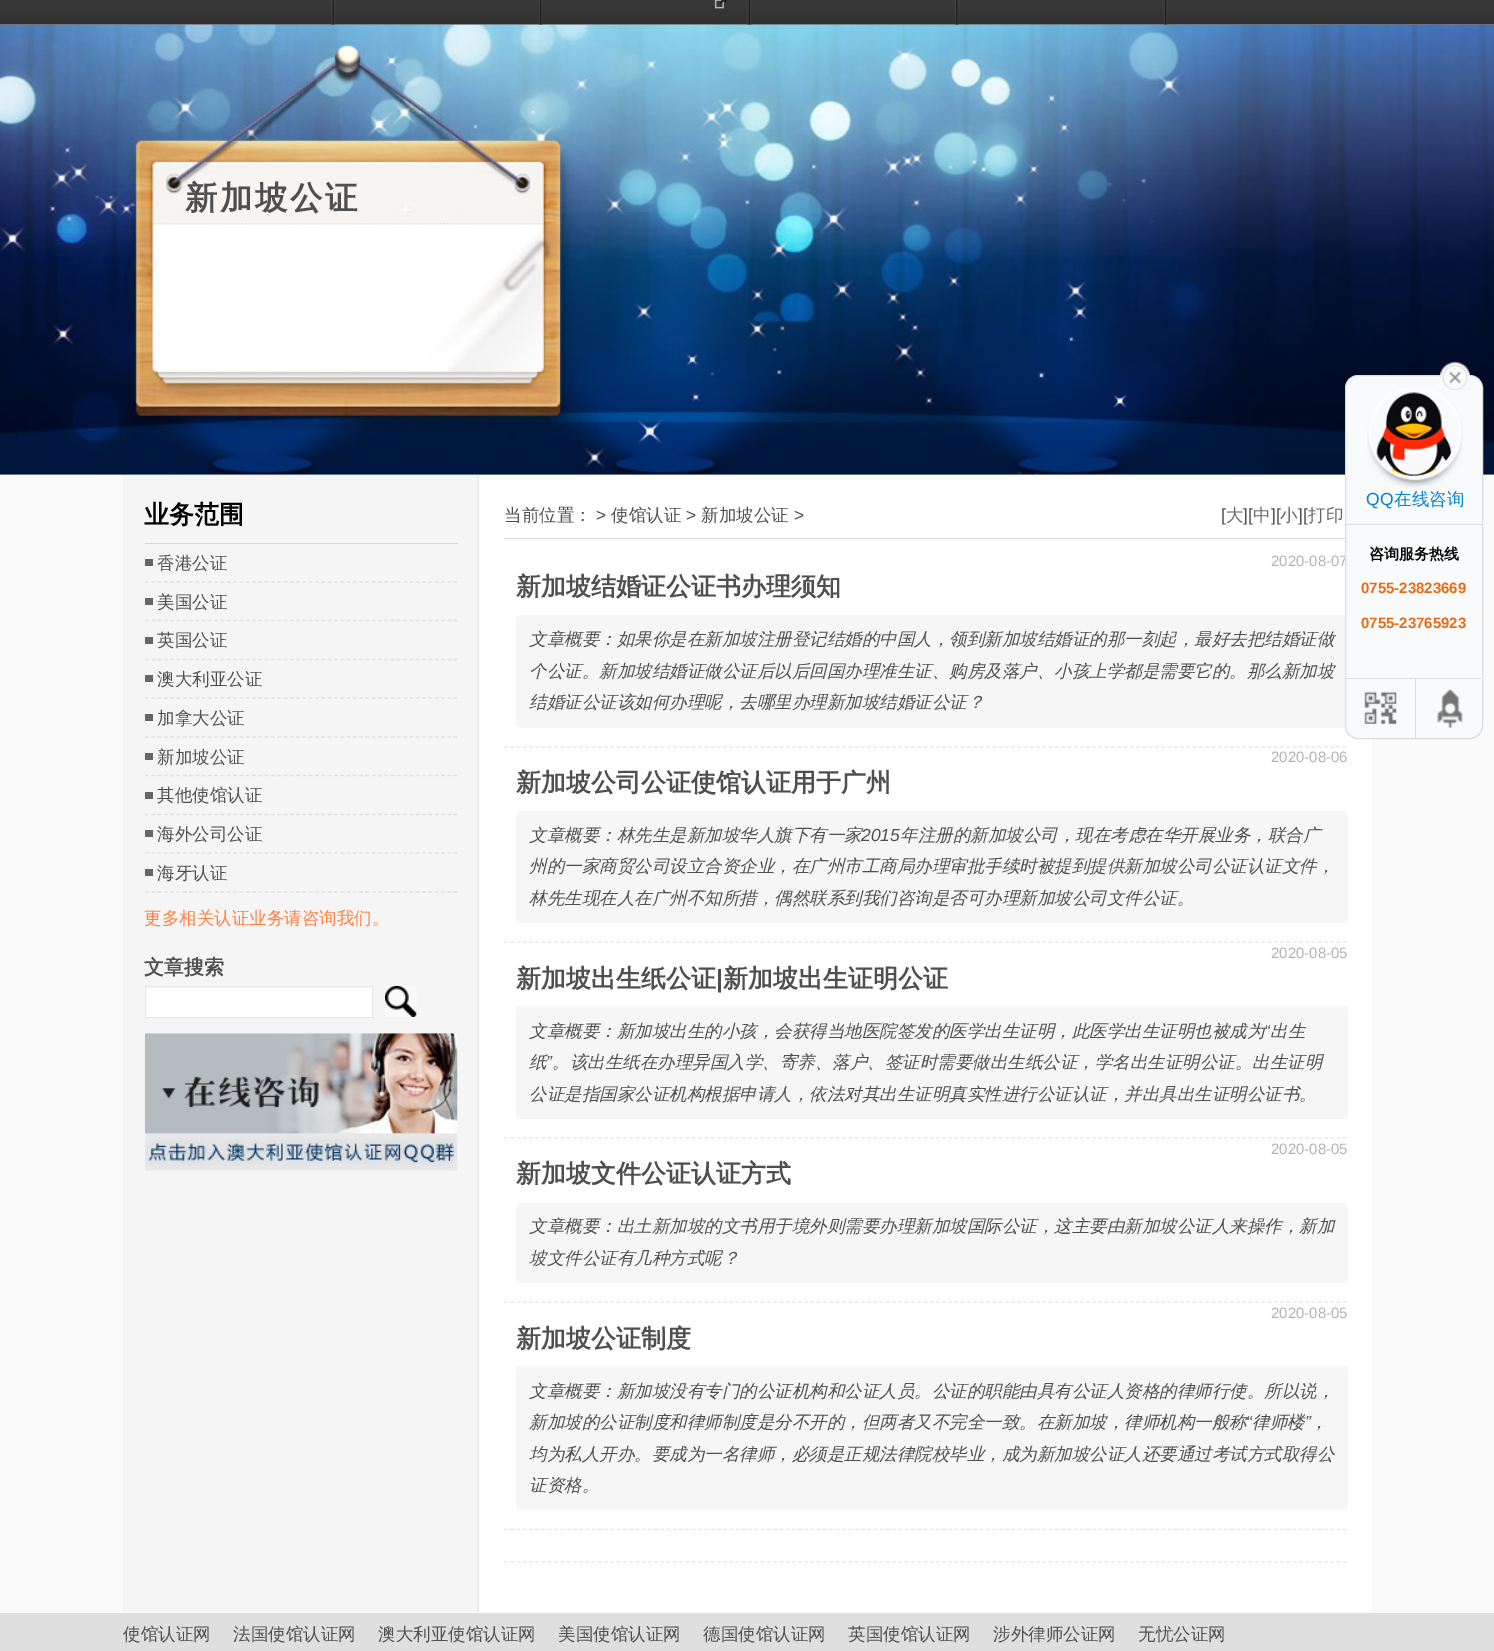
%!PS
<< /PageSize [1494 1651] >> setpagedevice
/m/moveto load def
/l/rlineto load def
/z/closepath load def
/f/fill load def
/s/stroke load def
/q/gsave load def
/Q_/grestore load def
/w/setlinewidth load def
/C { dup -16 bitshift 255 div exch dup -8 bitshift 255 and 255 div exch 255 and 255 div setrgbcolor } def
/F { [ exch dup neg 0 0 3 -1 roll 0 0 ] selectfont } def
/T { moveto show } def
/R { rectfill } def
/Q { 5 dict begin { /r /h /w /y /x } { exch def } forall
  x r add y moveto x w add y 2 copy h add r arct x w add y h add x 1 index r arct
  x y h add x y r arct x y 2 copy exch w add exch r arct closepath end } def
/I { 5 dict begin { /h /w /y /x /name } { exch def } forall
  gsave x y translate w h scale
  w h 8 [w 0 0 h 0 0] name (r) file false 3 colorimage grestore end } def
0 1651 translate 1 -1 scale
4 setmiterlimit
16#FAFAFA C
0 0 1494 1651 R
16#D1D0CE C
0 474 1494 1 R
(8.rgb) 0 24 1494 451 I
(1.rgb) 0 0 1494 25 I
(2.rgb) 331 0 4 25 I
(3.rgb) 538 0 5 25 I
(4.rgb) 714 0 13 9 I
(5.rgb) 747 0 5 25 I
(6.rgb) 955 0 4 25 I
(7.rgb) 1163 0 5 25 I
/WenQuanYiZenHei-Bold 32.5 F
16#4F4F4F C
185 209 m 2.5 0 (新加坡公证) ashow
(9.rgb) 123 475 1249 1137 I
16#D9D9D9 C
145 543 313 1 R
/WenQuanYiZenHei-Bold 25 F
16#000000 C
(业务范围) 144 523 T
16#666666 C
145 559 8 7 R
16#E1E1E1 C
1.2 w
[3.75 2.55] 0 setdash
145 582 m 312.5 0 l s
/WenQuanYiZenHei-Medium 17.5 F
16#4F4F4F C
(香港公证) 157 569 T
16#666666 C
145 598 8 7 R
16#E1E1E1 C
145 620.5 m 312.5 0 l s
16#4F4F4F C
(美国公证) 157 608 T
16#666666 C
145 637 8 7 R
16#E1E1E1 C
145 659.5 m 312.5 0 l s
16#4F4F4F C
(英国公证) 157 646 T
16#666666 C
145 675 8 7 R
16#E1E1E1 C
145 698 m 312.5 0 l s
16#4F4F4F C
(澳大利亚公证) 157 685 T
16#666666 C
145 714 8 7 R
16#E1E1E1 C
145 737 m 312.5 0 l s
16#4F4F4F C
(加拿大公证) 157 724 T
16#666666 C
145 753 8 7 R
16#E1E1E1 C
145 775.5 m 312.5 0 l s
16#4F4F4F C
(新加坡公证) 157 763 T
16#666666 C
145 792 8 7 R
16#E1E1E1 C
145 814.5 m 312.5 0 l s
16#4F4F4F C
(其他使馆认证) 157 801 T
16#666666 C
145 830 8 7 R
16#E1E1E1 C
145 853 m 312.5 0 l s
16#4F4F4F C
(海外公司公证) 157 840 T
16#666666 C
145 869 8 7 R
16#E1E1E1 C
145 892 m 312.5 0 l s
16#4F4F4F C
(海牙认证) 157 879 T
16#FF8042 C
(更多相关认证业务请咨询我们。) 144 924 T
/WenQuanYiZenHei-Bold 20 F
16#4F4F4F C
(文章搜索) 144 974 T
16#FFFFFF C
145.5 986.5 m 227 0 l 0 31 l -227 0 l z q f Q_
16#E6E6E6 C
1 w
[] 0 setdash
s
(10.rgb) 385 985 32 32 I
(11.rgb) 145 1033 313 138 I
16#D9D9D9 C
504 538 844 1 R
/WenQuanYiZenHei-Medium 17.5 F
16#4F4F4F C
(当前位置：) 504 521 T
/LiberationSans-Regular 17.5 F
(>) 596 521 T
/WenQuanYiZenHei-Medium 17.5 F
(使馆认证) 611 521 T
/LiberationSans-Regular 17.5 F
(>) 686 521 T
/WenQuanYiZenHei-Medium 17.5 F
(新加坡公证) 701 521 T
/LiberationSans-Regular 17.5 F
(>) 794 521 T
([) 1221 521 T
/WenQuanYiZenHei-Medium 17.5 F
16#666666 C
(大) 1226 521 T
/LiberationSans-Regular 17.5 F
16#4F4F4F C
(][) 1243 521 T
/WenQuanYiZenHei-Medium 17.5 F
16#666666 C
(中) 1253 521 T
/LiberationSans-Regular 17.5 F
16#4F4F4F C
(][) 1271 521 T
/WenQuanYiZenHei-Medium 17.5 F
16#666666 C
(小) 1280 521 T
/LiberationSans-Regular 17.5 F
16#4F4F4F C
(][) 1298 521 T
/WenQuanYiZenHei-Medium 17.5 F
16#666666 C
(打印) 1308 521 T
16#E9E9E9 C
1.2 w
[3.75 2.51] 0 setdash
504 747 m 843.5 0 l s
/LiberationSans-Regular 15 F
16#B3B3B3 C
(2020-08-07) 1271 566 T
/WenQuanYiZenHei-Bold 25 F
16#4F4F4F C
(新加坡结婚证公证书办理须知) 516 595 T
16#F6F6F6 C
516 615 832 113 5 Q f
/WenQuanYiZenHei-MediumItalic 17.5 F
16#4F4F4F C
(文章概要：如果你是在新加坡注册登记结婚的中国人，领到新加坡结婚证的那一刻起，最好去把结婚证做) 529 645 T
(个公证。新加坡结婚证做公证后以后回国办理准生证、购房及落户、小孩上学都是需要它的。那么新加坡) 529 677 T
(结婚证公证该如何办理呢，去哪里办理新加坡结婚证公证？) 529 708 T
16#E9E9E9 C
504 942 m 843.5 0 l s
/LiberationSans-Regular 15 F
16#B3B3B3 C
(2020-08-06) 1271 762 T
/WenQuanYiZenHei-Bold 25 F
16#4F4F4F C
(新加坡公司公证使馆认证用于广州) 516 791 T
16#F6F6F6 C
516 811 832 112 5 Q f
/WenQuanYiZenHei-MediumItalic 17.5 F
16#4F4F4F C
(文章概要：林先生是新加坡华人旗下有一家) 529 841 T
/LiberationSans-Italic 17.5 F
(2015) 861 841 T
/WenQuanYiZenHei-MediumItalic 17.5 F
(年注册的新加坡公司，现在考虑在华开展业务，联合广) 900 841 T
(州的一家商贸公司设立合资企业，在广州市工商局办理审批手续时被提到提供新加坡公司公证认证文件，) 529 872 T
(林先生现在人在广州不知所措，偶然联系到我们咨询是否可办理新加坡公司文件公证。) 529 904 T
16#E9E9E9 C
504 1138 m 843.5 0 l s
/LiberationSans-Regular 15 F
16#B3B3B3 C
(2020-08-05) 1271 958 T
/WenQuanYiZenHei-Bold 25 F
16#4F4F4F C
(新加坡出生纸公证) 516 987 T
/LiberationSans-Bold 25 F
(|) 716 987 T
/WenQuanYiZenHei-Bold 25 F
(新加坡出生证明公证) 723 987 T
16#F6F6F6 C
516 1006 832 113 5 Q f
/WenQuanYiZenHei-MediumItalic 17.5 F
16#4F4F4F C
(文章概要：新加坡出生的小孩，会获得当地医院签发的医学出生证明，此医学出生证明也被成为) 529 1037 T
/LiberationSans-Italic 17.5 F
(“) 1264 1037 T
/WenQuanYiZenHei-MediumItalic 17.5 F
(出生) 1270 1037 T
(纸) 529 1068 T
/LiberationSans-Italic 17.5 F
(”) 546 1068 T
/WenQuanYiZenHei-MediumItalic 17.5 F
(。该出生纸在办理异国入学、寄养、落户、签证时需要做出生纸公证，学名出生证明公证。出生证明) 552 1068 T
(公证是指国家公证机构根据申请人，依法对其出生证明真实性进行公证认证，并出具出生证明公证书。) 529 1100 T
16#E9E9E9 C
504 1302 m 843.5 0 l s
/LiberationSans-Regular 15 F
16#B3B3B3 C
(2020-08-05) 1271 1154 T
/WenQuanYiZenHei-Bold 25 F
16#4F4F4F C
(新加坡文件公证认证方式) 516 1182 T
16#F6F6F6 C
516 1203 832 80 5 Q f
/WenQuanYiZenHei-MediumItalic 17.5 F
16#4F4F4F C
(文章概要：出土新加坡的文书用于境外则需要办理新加坡国际公证，这主要由新加坡公证人来操作，新加) 529 1232 T
(坡文件公证有几种方式呢？) 529 1264 T
16#E9E9E9 C
504 1529.5 m 843.5 0 l s
/LiberationSans-Regular 15 F
16#B3B3B3 C
(2020-08-05) 1271 1318 T
/WenQuanYiZenHei-Bold 25 F
16#4F4F4F C
(新加坡公证制度) 516 1347 T
16#F6F6F6 C
516 1366 832 144 5 Q f
/WenQuanYiZenHei-MediumItalic 17.5 F
16#4F4F4F C
(文章概要：新加坡没有专门的公证机构和公证人员。公证的职能由具有公证人资格的律师行使。所以说，) 529 1397 T
(新加坡的公证制度和律师制度是分不开的，但两者又不完全一致。在新加坡，律师机构一般称) 529 1428 T
/LiberationSans-Italic 17.5 F
(“) 1246 1428 T
/WenQuanYiZenHei-MediumItalic 17.5 F
(律师楼) 1252 1428 T
/LiberationSans-Italic 17.5 F
(”) 1305 1428 T
/WenQuanYiZenHei-MediumItalic 17.5 F
(，) 1310 1428 T
(均为私人开办。要成为一名律师，必须是正规法律院校毕业，成为新加坡公证人还要通过考试方式取得公) 529 1460 T
(证资格。) 529 1491 T
16#E9E9E9 C
504 1562 m 843.5 0 l s
16#F9FAFB C
1345.5 375.5 137 363 12.5 Q q f Q_
16#DDDDDD C
1 w
[] 0 setdash
s
(14.rgb) 1376 392 76 85 I
(13.rgb) 1367 388 96 100 I
(12.rgb) 1440 361 30 29 I
1346 524 137 1 R
/LiberationSans-Regular 17.5 F
16#0484CD C
(QQ) 1366 505 T
/WenQuanYiZenHei-Medium 17.5 F
(在线咨询) 1394 505 T
16#DDDDDD C
1346 678 135 1 R
/WenQuanYiZenHei-Bold 15 F
16#000000 C
(咨询服务热线) 1369 559 T
/LiberationSans-Bold 15 F
16#E66D15 C
(0755-23823669) 1361 593 T
(0755-23765923) 1361 628 T
(15.rgb) 1364 691 33 33 I
16#DDDDDD C
1415 679 1 59 R
(16.rgb) 1437 689 26 39 I
16#DFDFDF C
0 1613 1494 38 R
/WenQuanYiZenHei-Medium 17.5 F
16#4F4F4F C
(使馆认证网) 123 1640 T
(法国使馆认证网) 233 1640 T
(澳大利亚使馆认证网) 378 1640 T
(美国使馆认证网) 558 1640 T
(德国使馆认证网) 703 1640 T
(英国使馆认证网) 848 1640 T
(涉外律师公证网) 993 1640 T
(无忧公证网) 1138 1640 T
showpage
